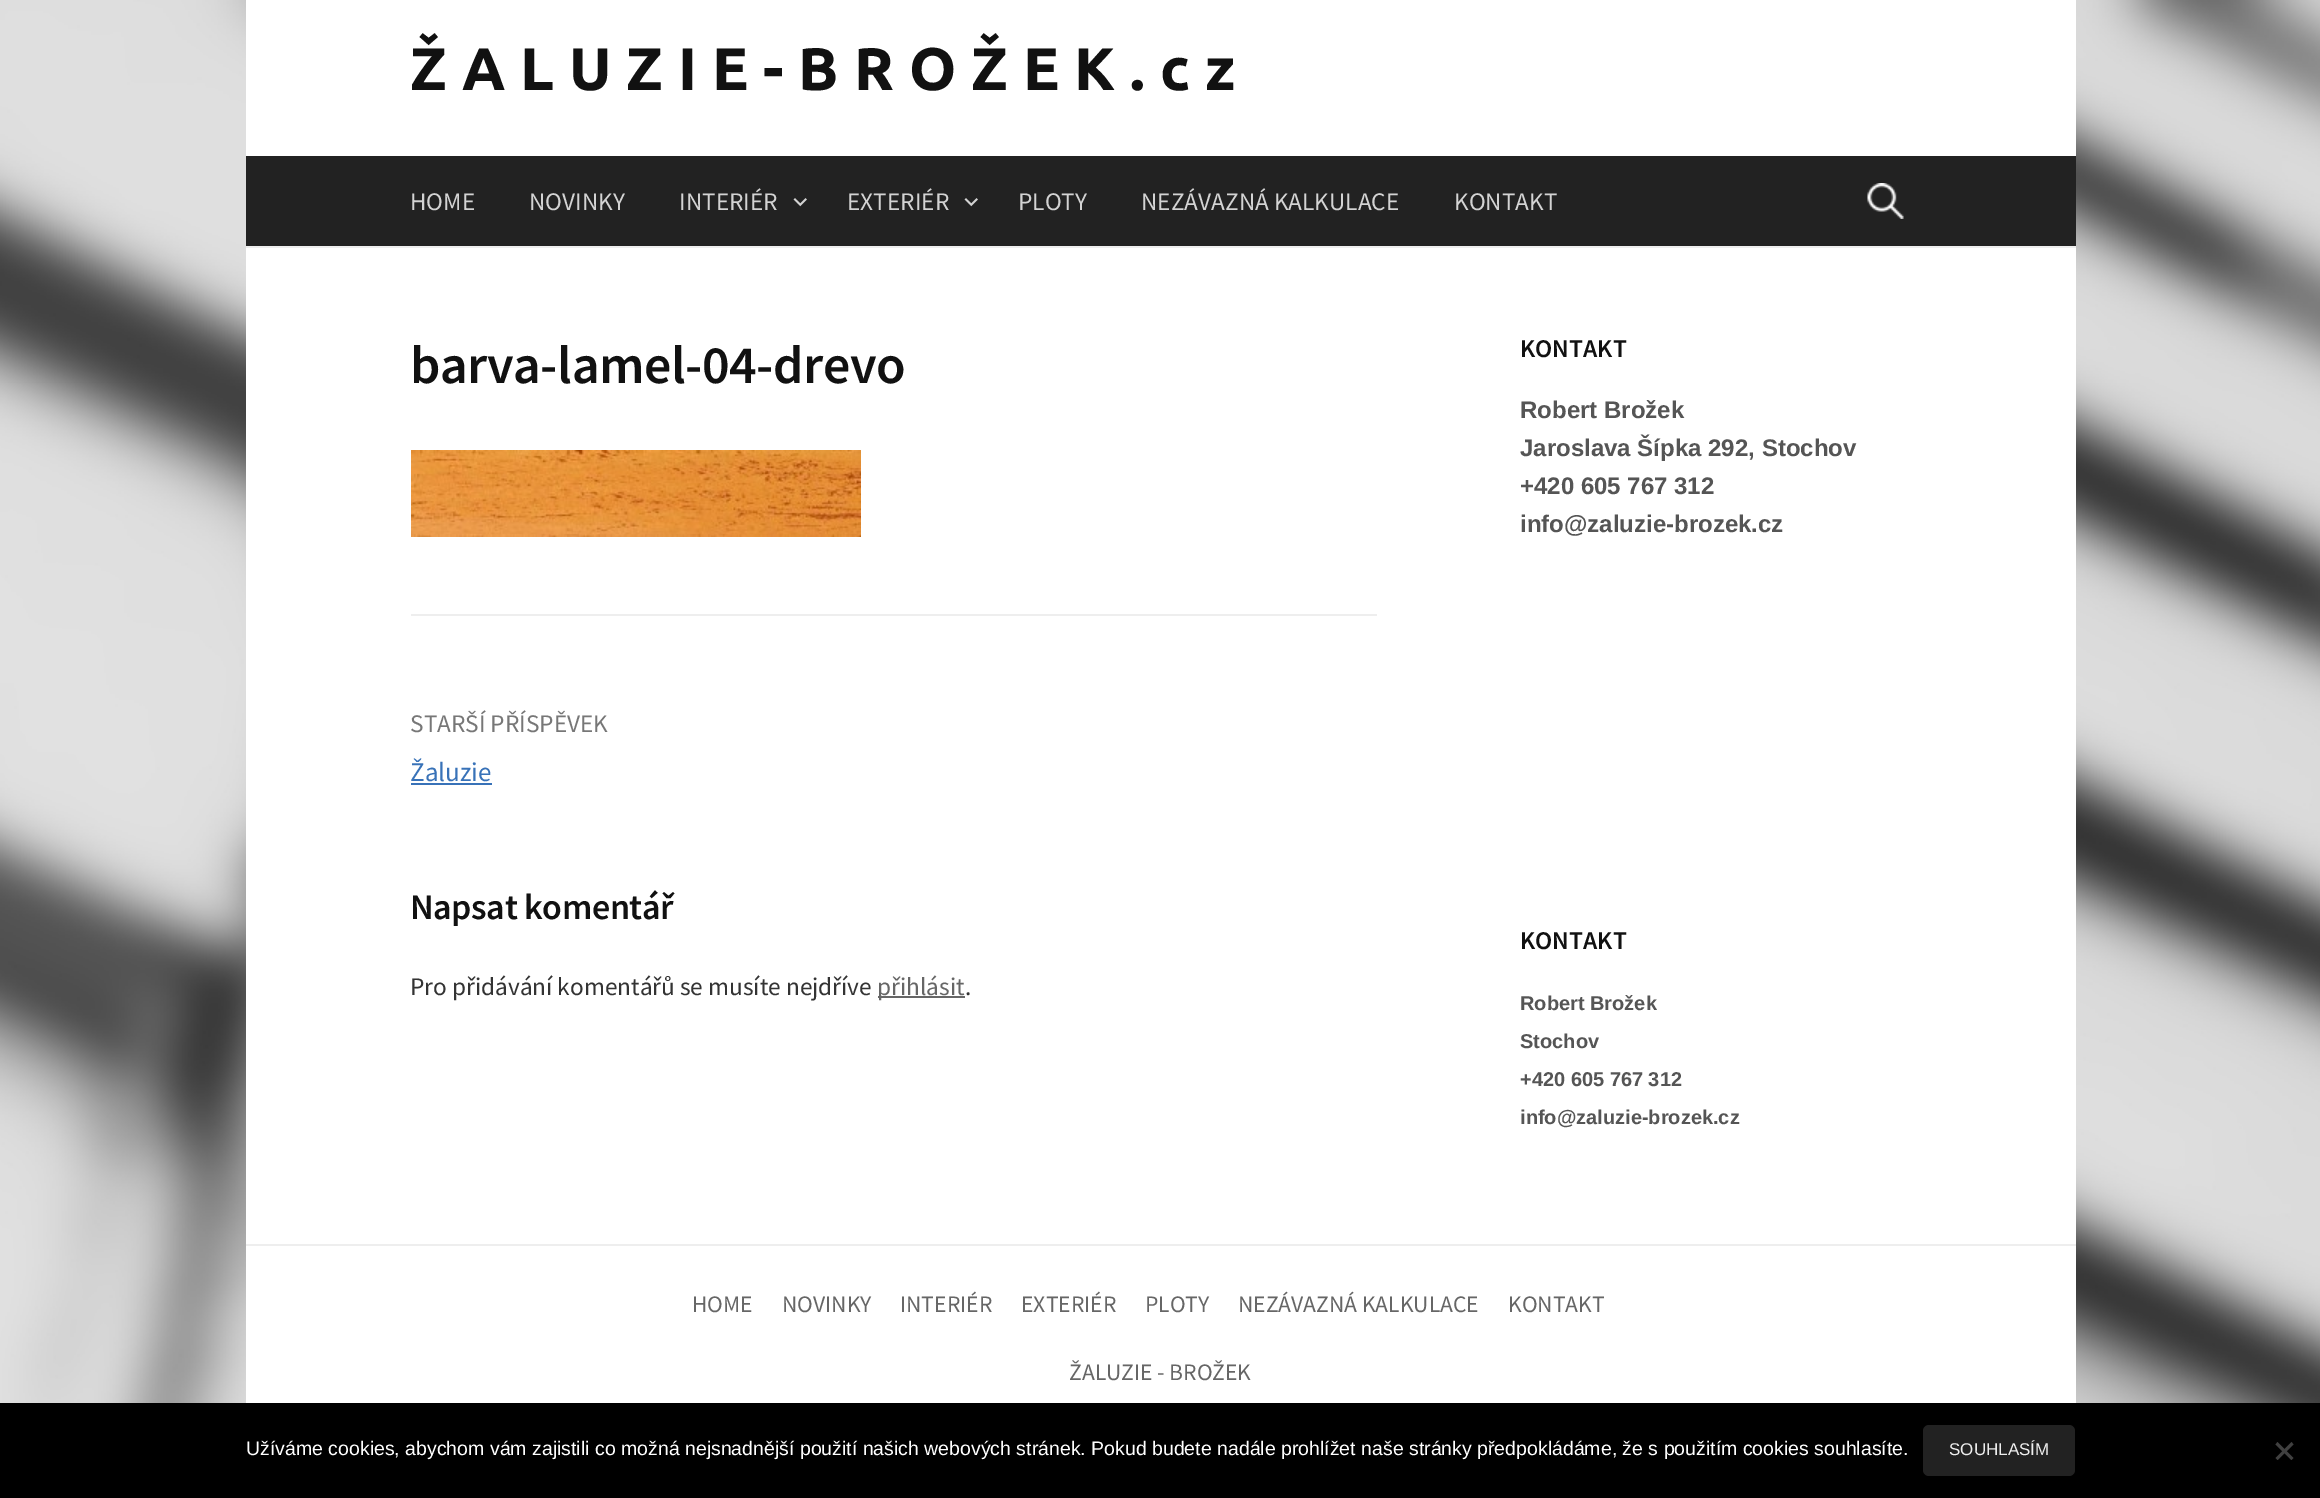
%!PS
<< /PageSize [2320 1498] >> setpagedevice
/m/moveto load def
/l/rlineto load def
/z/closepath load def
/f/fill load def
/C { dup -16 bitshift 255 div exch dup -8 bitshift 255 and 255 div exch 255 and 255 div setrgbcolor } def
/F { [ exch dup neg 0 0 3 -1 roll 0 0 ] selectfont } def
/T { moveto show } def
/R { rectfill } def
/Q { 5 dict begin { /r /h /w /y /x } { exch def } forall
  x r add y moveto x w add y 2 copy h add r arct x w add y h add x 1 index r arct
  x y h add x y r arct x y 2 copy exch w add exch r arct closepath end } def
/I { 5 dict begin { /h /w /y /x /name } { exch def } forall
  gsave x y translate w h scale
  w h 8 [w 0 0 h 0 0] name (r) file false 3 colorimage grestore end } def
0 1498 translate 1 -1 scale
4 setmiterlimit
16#FFFFFF C
0 0 2320 1498 R
(1.rgb) 0 0 2320 1403 I
246 0 1830 1403 R
16#EEEEEE C
246 246 1830 2 R
/Ubuntu-Bold 60 F
16#111111 C
410 90 m 15 0 (ŽALUZIE-BROŽEK.cz) ashow
16#222222 C
246 156 1830 90 R
/SourceSansPro-Regular 25.3 F
16#D3D3D3 C
(HOME) 410 210 T
(NOVINKY) 529 210 T
(INTERIÉR) 679 210 T
(2.rgb) 793 198 14 9 I
(EXTERIÉR) 847 210 T
(2.rgb) 964 198 14 9 I
(PLOTY) 1018 210 T
(NEZÁVAZNÁ KALKULACE) 1141 210 T
(KONTAKT) 1454 210 T
(3.rgb) 1867 183 37 36 I
16#EEEEEE C
411 614 966 2 R
/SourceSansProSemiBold-SemiBold 54 F
16#111111 C
410 383 m -.5 0 (barva-lamel-04-drevo) ashow
(4.rgb) 411 450 450 87 I
/SourceSansPro-Regular 25.3 F
16#777777 C
(STARŠÍ PŘÍSPĚVEK) 410 732 T
/SourceSansPro-Regular 27 F
16#3872B8 C
(Žaluzie) 410 781 T
411 783 81 2 R
/SourceSansProSemiBold-SemiBold 36 F
16#111111 C
410 919 m -.4 0 (Napsat komentář) ashow
/SourceSansPro-Regular 25.3 F
16#333333 C
(Pro přidávání komentářů se musíte nejdříve) 410 995 T
16#666666 C
878 996 87 2 R
(přihlásit) 877 995 T
16#333333 C
(.) 965 995 T
/SourceSansProSemiBold-SemiBold 25.5 F
16#111111 C
(KONTAKT) 1520 357 T
/LiberationSans-Bold 24 F
16#555555 C
(Robert Brožek) 1520 418 T
(Jaroslava Šípka 292, Stochov) 1520 456 T
(+420 605 767 312) 1520 494 T
(info@zaluzie-brozek.cz) 1520 532 T
/SourceSansProSemiBold-SemiBold 25.5 F
16#111111 C
(KONTAKT) 1520 949 T
/LiberationSans-Bold 20 F
16#555555 C
(Robert Brožek) 1520 1010 T
(Stochov) 1520 1048 T
(+420 605 767 312) 1520 1086 T
(info@zaluzie-brozek.cz) 1520 1124 T
16#EEEEEE C
246 1244 1830 2 R
/SourceSansPro-Regular 23.6 F
16#666666 C
(HOME) 692 1312 T
(NOVINKY) 782 1312 T
(INTERIÉR) 900 1312 T
(EXTERIÉR) 1021 1312 T
(PLOTY) 1145 1312 T
(NEZÁVAZNÁ KALKULACE) 1238 1312 T
(KONTAKT) 1508 1312 T
(ŽALUZIE - BROŽEK) 1069 1380 T
16#000000 C
0 1403 2320 95 R
/LiberationSans-Regular 19.5 F
16#FFFFFF C
(Užíváme cookies, abychom vám zajistili co možná nejsnadnější použití našich webových stránek. Pokud budete nadále prohlížet naše stránky předpokládáme, že s použitím cookies souhlasíte.) 246 1455 T
16#222222 C
1923 1425 152 51 6 Q f
/LiberationSans-Regular 17 F
16#EEEEEE C
(SOUHLASÍM) 1949 1455 T
16#404040 C
2291.5 1442 m 2 2.5 l -16 15.5 l -2 -2 l z f
2275.5 1444.5 m 2 -2.5 l 16 16 l -2 2 l z f
showpage
